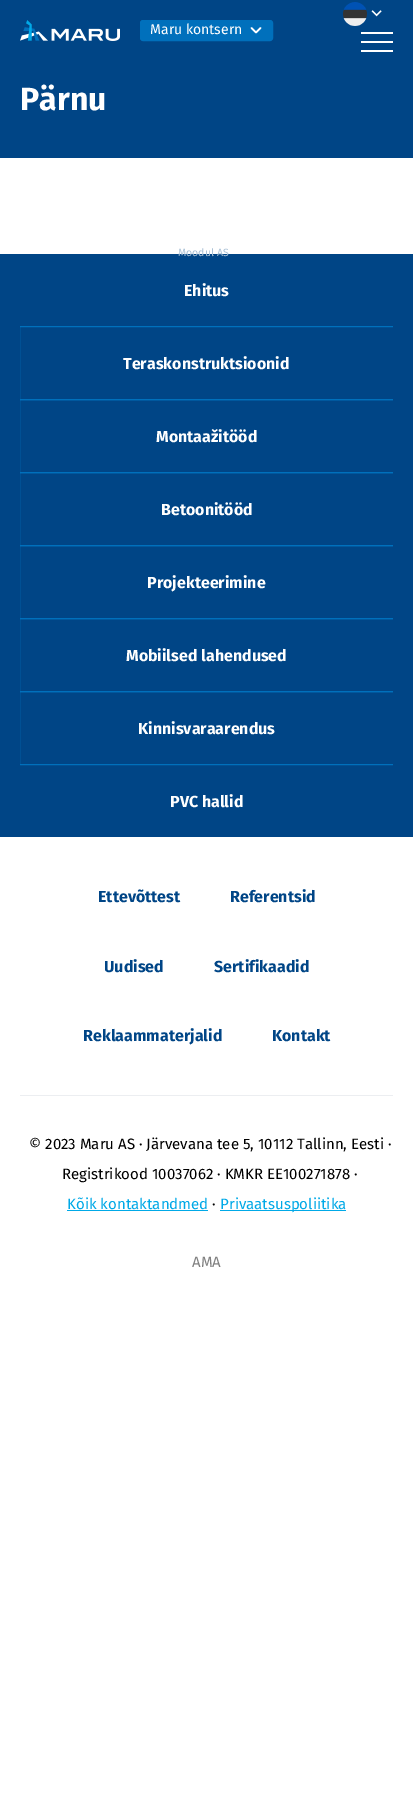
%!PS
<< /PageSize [413 1807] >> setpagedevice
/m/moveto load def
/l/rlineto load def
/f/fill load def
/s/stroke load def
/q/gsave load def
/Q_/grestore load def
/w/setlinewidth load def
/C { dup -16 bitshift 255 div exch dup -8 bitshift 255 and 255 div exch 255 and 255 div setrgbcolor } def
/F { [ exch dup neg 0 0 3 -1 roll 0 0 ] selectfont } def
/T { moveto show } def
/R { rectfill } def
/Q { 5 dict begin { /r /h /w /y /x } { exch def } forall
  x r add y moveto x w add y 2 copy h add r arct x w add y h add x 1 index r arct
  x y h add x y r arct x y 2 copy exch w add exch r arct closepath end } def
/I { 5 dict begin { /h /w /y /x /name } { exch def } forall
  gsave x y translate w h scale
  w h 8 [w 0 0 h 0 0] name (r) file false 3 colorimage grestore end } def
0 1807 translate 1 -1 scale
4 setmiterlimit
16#FFFFFF C
0 0 413 1807 R
16#004586 C
0 0 413 158 R
/FiraSans-Bold 32 F
16#FFFFFF C
(Pärnu) 20 110 T
(1.rgb) 20 20 100 21 I
16#0070BC C
140.5 20.5 132 20 2.5 Q q f Q_
s
/FiraSans-Regular 14 F
16#FFFFFF C
(Maru kontsern) 150 34 T
1.7 w
1 setlinecap
1 setlinejoin
251.5 28 m 4.5 4.5 l 4.5 -4.5 l s
16#004586 C
0 254 413 583 R
/FiraSans-Regular 10.5 F
16#ABC2D7 C
(Moodul AS) 178 256 T
(2.rgb) 343 2 24 24 I
(3.rgb) 371 10 11 7 I
16#FFFFFF C
361 32 32 2 R
361 41 32 2 R
361 50 32 2 R
/FiraSans-Bold 16 F
(Ehitus) 184 296 T
q
20 254 373 583 rectclip
16#0070BC C
1 w
0 setlinecap
0 setlinejoin
19.5 326.5 374 73 rectstroke
Q_
(Teraskonstruktsioonid) 123 369 T
q
20 254 373 583 rectclip
16#0070BC C
1 w
0 setlinecap
0 setlinejoin
19.5 399.5 374 73 rectstroke
Q_
(Montaažitööd) 156 442 T
q
20 254 373 583 rectclip
16#0070BC C
1 w
0 setlinecap
0 setlinejoin
19.5 472.5 374 73 rectstroke
Q_
(Betoonitööd) 161 515 T
q
20 254 373 583 rectclip
16#0070BC C
1 w
0 setlinecap
0 setlinejoin
19.5 545.5 374 73 rectstroke
Q_
(Projekteerimine) 147 588 T
q
20 254 373 583 rectclip
16#0070BC C
1 w
0 setlinecap
0 setlinejoin
19.5 618.5 374 73 rectstroke
Q_
(Mobiilsed lahendused) 126 661 T
q
20 254 373 583 rectclip
16#0070BC C
1 w
0 setlinecap
0 setlinejoin
19.5 691.5 374 73 rectstroke
Q_
(Kinnisvaraarendus) 138 734 T
(PVC hallid) 170 807 T
16#004586 C
(Ettevõttest) 98 902 T
(Referentsid) 230 902 T
(Uudised) 104 972 T
(Sertifikaadid) 214 972 T
(Reklaammaterjalid) 83 1041 T
(Kontakt) 272 1041 T
16#ECEEF1 C
20 1095 373 1 R
/FiraSans-Regular 15 F
16#000000 C
(© 2023 Maru AS · Järvevana tee 5, 10112 Tallinn, Eesti ·) 29 1149 T
(Registrikood 10037062 · KMKR EE100271878 ·) 62 1179 T
16#00A9E7 C
(Kõik kontaktandmed) 67 1209 T
67 1210 141 1 R
16#000000 C
(·) 212 1209 T
16#00A9E7 C
220 1210 126 1 R
(Privaatsuspoliitika) 220 1209 T
16#808080 C
(AMA) 192 1267 T
showpage
